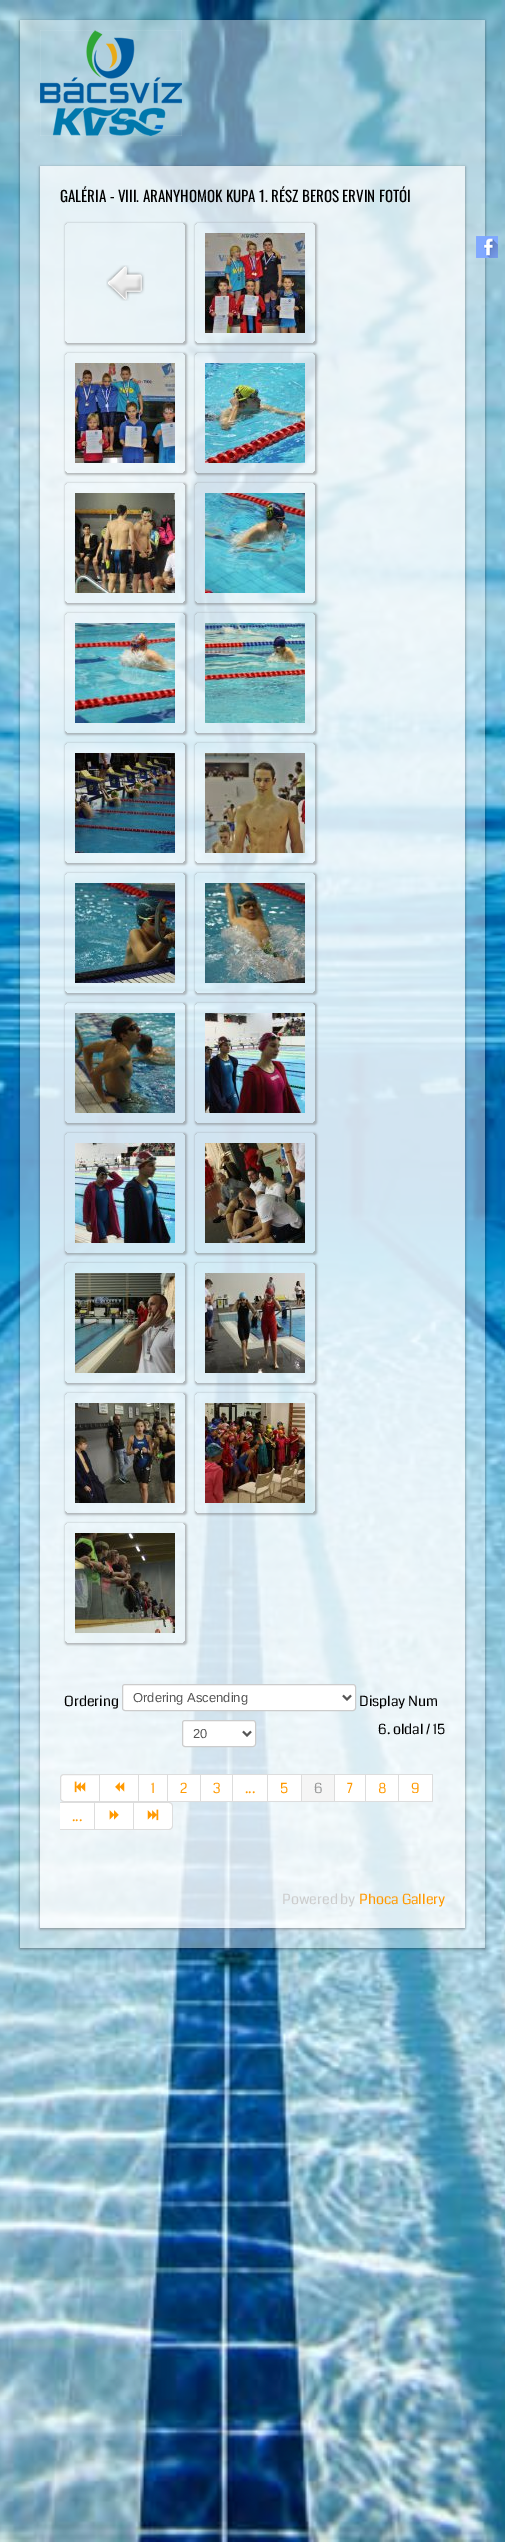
%!PS
<< /PageSize [505 2542] /PageUsesTransparency true >> setpagedevice
/m/moveto load def
/l/rlineto load def
/c/rcurveto load def
/z/closepath load def
/f/fill load def
/s/stroke load def
/q/gsave load def
/Q_/grestore load def
/w/setlinewidth load def
/C { dup -16 bitshift 255 div exch dup -8 bitshift 255 and 255 div exch 255 and 255 div setrgbcolor } def
/F { [ exch dup neg 0 0 3 -1 roll 0 0 ] selectfont } def
/T { moveto show } def
/R { rectfill } def
/A { dup .setfillconstantalpha .setstrokeconstantalpha } def
/Q { 5 dict begin { /r /h /w /y /x } { exch def } forall
  x r add y moveto x w add y 2 copy h add r arct x w add y h add x 1 index r arct
  x y h add x y r arct x y 2 copy exch w add exch r arct closepath end } def
/S { 12 dict begin { /a /b /q /h /w /y /x } { exch def } forall gsave /was 0 def
  9 -2 -9 { dup b mul 4 div /e exch def 1 sub .425 mul 2.718 exch exp 1 add a .99 .min exch div /now exch def
    1 1 now sub 1 was sub div sub A /was now def
    w h .min e 2 mul add 0 gt { x e sub y e sub w e 2 mul add h e 2 mul add
      q e add b .6 mul add w h .min 2 div e add .min 0 .max Q fill } if } for grestore end } def
/I { 5 dict begin { /h /w /y /x /name } { exch def } forall
  gsave x y translate w h scale
  w h 8 [w 0 0 h 0 0] name (r) file false 3 colorimage grestore end } def
0 .pushpdf14devicefilter
0 2542 translate 1 -1 scale
4 setmiterlimit
16#FFFFFF C
0 0 505 2542 R
(1.rgb) 0 0 505 2542 I
q
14 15 m 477 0 l 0 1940 l -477 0 l z 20 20 m 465 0 l 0 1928 l -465 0 l z eoclip newpath
16#000000 C
20 21 465 1928 0 1.5 .4 S
Q_
0.4 A
20 20 465 146 R
1 A
(2.rgb) 40 30 142 106 I
0.4 A
20 166 465 1782 R
q
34 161 m 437 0 l 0 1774 l -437 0 l z 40 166 m 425 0 l 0 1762 l -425 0 l z eoclip newpath
1 A
16#000000 C
40 167 425 1762 0 1.5 .4 S
Q_
0.7 A
40 166 425 1762 R
/Oswald-Regular 15 F
1 A
16#000000 C
(GALÉRIA - VIII. ARANYHOMOK KUPA 1. RÉSZ BEROS ERVIN FOTÓI) 60 202 T
q
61 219 m 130 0 l 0 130 l -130 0 l z 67 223 m 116 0 l 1 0 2 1 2 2 c 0 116 l 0 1 -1 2 -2 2 c -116 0 l -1 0 -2 -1 -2 -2 c 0 -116 l 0 -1 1 -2 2 -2 c z eoclip newpath
16#787878 C
65 223 122 122 3 1 .5 S
Q_
(3.rgb) 106 265 39 36 I
q
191 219 m 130 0 l 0 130 l -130 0 l z 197 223 m 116 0 l 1 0 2 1 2 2 c 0 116 l 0 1 -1 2 -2 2 c -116 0 l -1 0 -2 -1 -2 -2 c 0 -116 l 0 -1 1 -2 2 -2 c z eoclip newpath
16#787878 C
195 223 122 122 3 1 .5 S
Q_
(4.rgb) 205 233 100 100 I
q
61 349 m 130 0 l 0 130 l -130 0 l z 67 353 m 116 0 l 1 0 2 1 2 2 c 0 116 l 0 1 -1 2 -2 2 c -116 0 l -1 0 -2 -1 -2 -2 c 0 -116 l 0 -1 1 -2 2 -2 c z eoclip newpath
16#787878 C
65 353 122 122 3 1 .5 S
Q_
(5.rgb) 75 363 100 100 I
q
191 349 m 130 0 l 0 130 l -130 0 l z 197 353 m 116 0 l 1 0 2 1 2 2 c 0 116 l 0 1 -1 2 -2 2 c -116 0 l -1 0 -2 -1 -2 -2 c 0 -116 l 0 -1 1 -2 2 -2 c z eoclip newpath
16#787878 C
195 353 122 122 3 1 .5 S
Q_
(6.rgb) 205 363 100 100 I
q
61 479 m 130 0 l 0 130 l -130 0 l z 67 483 m 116 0 l 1 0 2 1 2 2 c 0 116 l 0 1 -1 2 -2 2 c -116 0 l -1 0 -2 -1 -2 -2 c 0 -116 l 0 -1 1 -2 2 -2 c z eoclip newpath
16#787878 C
65 483 122 122 3 1 .5 S
Q_
(7.rgb) 75 493 100 100 I
q
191 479 m 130 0 l 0 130 l -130 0 l z 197 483 m 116 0 l 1 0 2 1 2 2 c 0 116 l 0 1 -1 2 -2 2 c -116 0 l -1 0 -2 -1 -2 -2 c 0 -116 l 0 -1 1 -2 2 -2 c z eoclip newpath
16#787878 C
195 483 122 122 3 1 .5 S
Q_
(8.rgb) 205 493 100 100 I
q
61 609 m 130 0 l 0 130 l -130 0 l z 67 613 m 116 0 l 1 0 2 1 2 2 c 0 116 l 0 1 -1 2 -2 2 c -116 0 l -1 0 -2 -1 -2 -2 c 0 -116 l 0 -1 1 -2 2 -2 c z eoclip newpath
16#787878 C
65 613 122 122 3 1 .5 S
Q_
(9.rgb) 75 623 100 100 I
q
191 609 m 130 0 l 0 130 l -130 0 l z 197 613 m 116 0 l 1 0 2 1 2 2 c 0 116 l 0 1 -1 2 -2 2 c -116 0 l -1 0 -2 -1 -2 -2 c 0 -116 l 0 -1 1 -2 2 -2 c z eoclip newpath
16#787878 C
195 613 122 122 3 1 .5 S
Q_
(10.rgb) 205 623 100 100 I
q
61 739 m 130 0 l 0 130 l -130 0 l z 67 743 m 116 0 l 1 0 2 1 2 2 c 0 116 l 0 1 -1 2 -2 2 c -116 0 l -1 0 -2 -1 -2 -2 c 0 -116 l 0 -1 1 -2 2 -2 c z eoclip newpath
16#787878 C
65 743 122 122 3 1 .5 S
Q_
(11.rgb) 75 753 100 100 I
q
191 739 m 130 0 l 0 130 l -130 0 l z 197 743 m 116 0 l 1 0 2 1 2 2 c 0 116 l 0 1 -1 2 -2 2 c -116 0 l -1 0 -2 -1 -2 -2 c 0 -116 l 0 -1 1 -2 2 -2 c z eoclip newpath
16#787878 C
195 743 122 122 3 1 .5 S
Q_
(12.rgb) 205 753 100 100 I
q
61 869 m 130 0 l 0 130 l -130 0 l z 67 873 m 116 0 l 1 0 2 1 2 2 c 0 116 l 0 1 -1 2 -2 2 c -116 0 l -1 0 -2 -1 -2 -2 c 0 -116 l 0 -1 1 -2 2 -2 c z eoclip newpath
16#787878 C
65 873 122 122 3 1 .5 S
Q_
(13.rgb) 75 883 100 100 I
q
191 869 m 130 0 l 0 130 l -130 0 l z 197 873 m 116 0 l 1 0 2 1 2 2 c 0 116 l 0 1 -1 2 -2 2 c -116 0 l -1 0 -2 -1 -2 -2 c 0 -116 l 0 -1 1 -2 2 -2 c z eoclip newpath
16#787878 C
195 873 122 122 3 1 .5 S
Q_
(14.rgb) 205 883 100 100 I
q
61 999 m 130 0 l 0 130 l -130 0 l z 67 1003 m 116 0 l 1 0 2 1 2 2 c 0 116 l 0 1 -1 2 -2 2 c -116 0 l -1 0 -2 -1 -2 -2 c 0 -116 l 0 -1 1 -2 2 -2 c z eoclip newpath
16#787878 C
65 1003 122 122 3 1 .5 S
Q_
(15.rgb) 75 1013 100 100 I
q
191 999 m 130 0 l 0 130 l -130 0 l z 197 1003 m 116 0 l 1 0 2 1 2 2 c 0 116 l 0 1 -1 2 -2 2 c -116 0 l -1 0 -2 -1 -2 -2 c 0 -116 l 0 -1 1 -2 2 -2 c z eoclip newpath
16#787878 C
195 1003 122 122 3 1 .5 S
Q_
(16.rgb) 205 1013 100 100 I
q
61 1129 m 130 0 l 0 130 l -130 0 l z 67 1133 m 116 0 l 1 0 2 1 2 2 c 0 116 l 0 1 -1 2 -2 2 c -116 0 l -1 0 -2 -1 -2 -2 c 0 -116 l 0 -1 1 -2 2 -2 c z eoclip newpath
16#787878 C
65 1133 122 122 3 1 .5 S
Q_
(17.rgb) 75 1143 100 100 I
q
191 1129 m 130 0 l 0 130 l -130 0 l z 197 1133 m 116 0 l 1 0 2 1 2 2 c 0 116 l 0 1 -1 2 -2 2 c -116 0 l -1 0 -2 -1 -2 -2 c 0 -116 l 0 -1 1 -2 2 -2 c z eoclip newpath
16#787878 C
195 1133 122 122 3 1 .5 S
Q_
(18.rgb) 205 1143 100 100 I
q
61 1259 m 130 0 l 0 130 l -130 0 l z 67 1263 m 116 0 l 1 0 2 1 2 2 c 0 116 l 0 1 -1 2 -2 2 c -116 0 l -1 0 -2 -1 -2 -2 c 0 -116 l 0 -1 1 -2 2 -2 c z eoclip newpath
16#787878 C
65 1263 122 122 3 1 .5 S
Q_
(19.rgb) 75 1273 100 100 I
q
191 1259 m 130 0 l 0 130 l -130 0 l z 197 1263 m 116 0 l 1 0 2 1 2 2 c 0 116 l 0 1 -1 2 -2 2 c -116 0 l -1 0 -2 -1 -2 -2 c 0 -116 l 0 -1 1 -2 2 -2 c z eoclip newpath
16#787878 C
195 1263 122 122 3 1 .5 S
Q_
(20.rgb) 205 1273 100 100 I
q
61 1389 m 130 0 l 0 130 l -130 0 l z 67 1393 m 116 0 l 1 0 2 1 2 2 c 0 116 l 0 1 -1 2 -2 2 c -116 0 l -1 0 -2 -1 -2 -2 c 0 -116 l 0 -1 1 -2 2 -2 c z eoclip newpath
16#787878 C
65 1393 122 122 3 1 .5 S
Q_
(21.rgb) 75 1403 100 100 I
q
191 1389 m 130 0 l 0 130 l -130 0 l z 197 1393 m 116 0 l 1 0 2 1 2 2 c 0 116 l 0 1 -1 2 -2 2 c -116 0 l -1 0 -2 -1 -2 -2 c 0 -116 l 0 -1 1 -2 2 -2 c z eoclip newpath
16#787878 C
195 1393 122 122 3 1 .5 S
Q_
(22.rgb) 205 1403 100 100 I
q
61 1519 m 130 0 l 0 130 l -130 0 l z 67 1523 m 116 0 l 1 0 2 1 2 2 c 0 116 l 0 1 -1 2 -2 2 c -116 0 l -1 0 -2 -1 -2 -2 c 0 -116 l 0 -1 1 -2 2 -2 c z eoclip newpath
16#787878 C
65 1523 122 122 3 1 .5 S
Q_
(23.rgb) 75 1533 100 100 I
/Coda-Regular 14 F
(Ordering) 64 1706 T
16#FFFFFF C
122.5 1684.5 233 26 2.5 Q q f Q_
16#CCCCCC C
s
16#555555 C
2 w
343 1695.5 m 4 4 l 4 -4 l s
/LiberationSans-Regular 13 F
(Ordering Ascending) 133 1702 T
/Coda-Regular 14 F
16#000000 C
(Display Num) 359 1706 T
16#FFFFFF C
182.5 1720.5 73 26 2.5 Q q f Q_
16#CCCCCC C
1 w
s
16#555555 C
2 w
243 1731.5 m 4 4 l 4 -4 l s
/LiberationSans-Regular 13 F
(20) 193 1738 T
/Coda-Regular 14 F
16#000000 C
(6. oldal / 15) 378 1734 T
16#FFFFFF C
64 1774.5 m 35.5 0 l 0 27 l -35.5 0 l -2 0 -3.5 -1.5 -3.5 -3.5 c 0 -20 l 0 -2 1.5 -3.5 3.5 -3.5 c z q f Q_
16#DDDDDD C
1 w
s
(24.rgb) 74 1781 12 12 I
16#FFFFFF C
100 1775 38 26 R
16#DDDDDD C
100 1774 333 1 R
138 1774 1 28 R
100 1801 39 1 R
(25.rgb) 115 1782 10 10 I
16#FFFFFF C
139 1775 28 26 R
16#DDDDDD C
167 1774 1 28 R
139 1801 29 1 R
16#FF9900 C
(1) 151 1793 T
16#FFFFFF C
168 1775 32 26 R
16#DDDDDD C
200 1774 1 28 R
168 1801 33 1 R
16#FF9900 C
(2) 180 1793 T
16#FFFFFF C
201 1775 31 26 R
16#DDDDDD C
232 1774 1 28 R
201 1801 32 1 R
16#FF9900 C
(3) 213 1793 T
16#FFFFFF C
233 1775 34 26 R
16#DDDDDD C
267 1774 1 28 R
233 1801 35 1 R
16#FF9900 C
(...) 245 1793 T
16#FFFFFF C
268 1775 33 26 R
16#DDDDDD C
301 1774 1 28 R
268 1801 34 1 R
16#FF9900 C
(5) 280 1793 T
16#F5F5F5 C
302 1775 32 26 R
16#DDDDDD C
334 1774 1 28 R
302 1801 33 1 R
16#999999 C
(6) 314 1793 T
16#FFFFFF C
335 1775 30 26 R
16#DDDDDD C
365 1774 1 28 R
335 1801 31 1 R
16#FF9900 C
(7) 347 1793 T
16#FFFFFF C
366 1775 32 26 R
16#DDDDDD C
398 1774 1 28 R
366 1801 33 1 R
16#FF9900 C
(8) 378 1793 T
16#FFFFFF C
399 1775 33 26 R
16#DDDDDD C
432 1774 1 28 R
399 1801 34 1 R
16#FF9900 C
(9) 411 1793 T
16#FFFFFF C
60 1803 34 26 R
16#DDDDDD C
60 1802 74 1 R
94 1802 1 28 R
60 1829 35 1 R
16#FF9900 C
(...) 72 1821 T
16#FFFFFF C
95 1803 38 26 R
16#DDDDDD C
133 1802 1 28 R
95 1829 39 1 R
(26.rgb) 109 1810 10 10 I
16#FFFFFF C
134 1803 m 35 0 l 1.5 0 3 1.5 3 3 c 0 20 l 0 1.5 -1.5 3 -3 3 c -35 0 l z f
16#DDDDDD C
134 1802 m 35 0 l 2 0 4 2 4 4 c 0 20 l 0 2 -2 4 -4 4 c -35 0 l z 134 1803 m 35 0 l 1.5 0 3 1.5 3 3 c 0 20 l 0 1.5 -1.5 3 -3 3 c -35 0 l z eofill
(27.rgb) 147 1809 12 12 I
16#CCCCCC C
(Powered by) 282 1904 T
16#FF9900 C
(Phoca Gallery) 359 1904 T
(28.rgb) 476 236 22 22 I
.poppdf14devicefilter showpage
